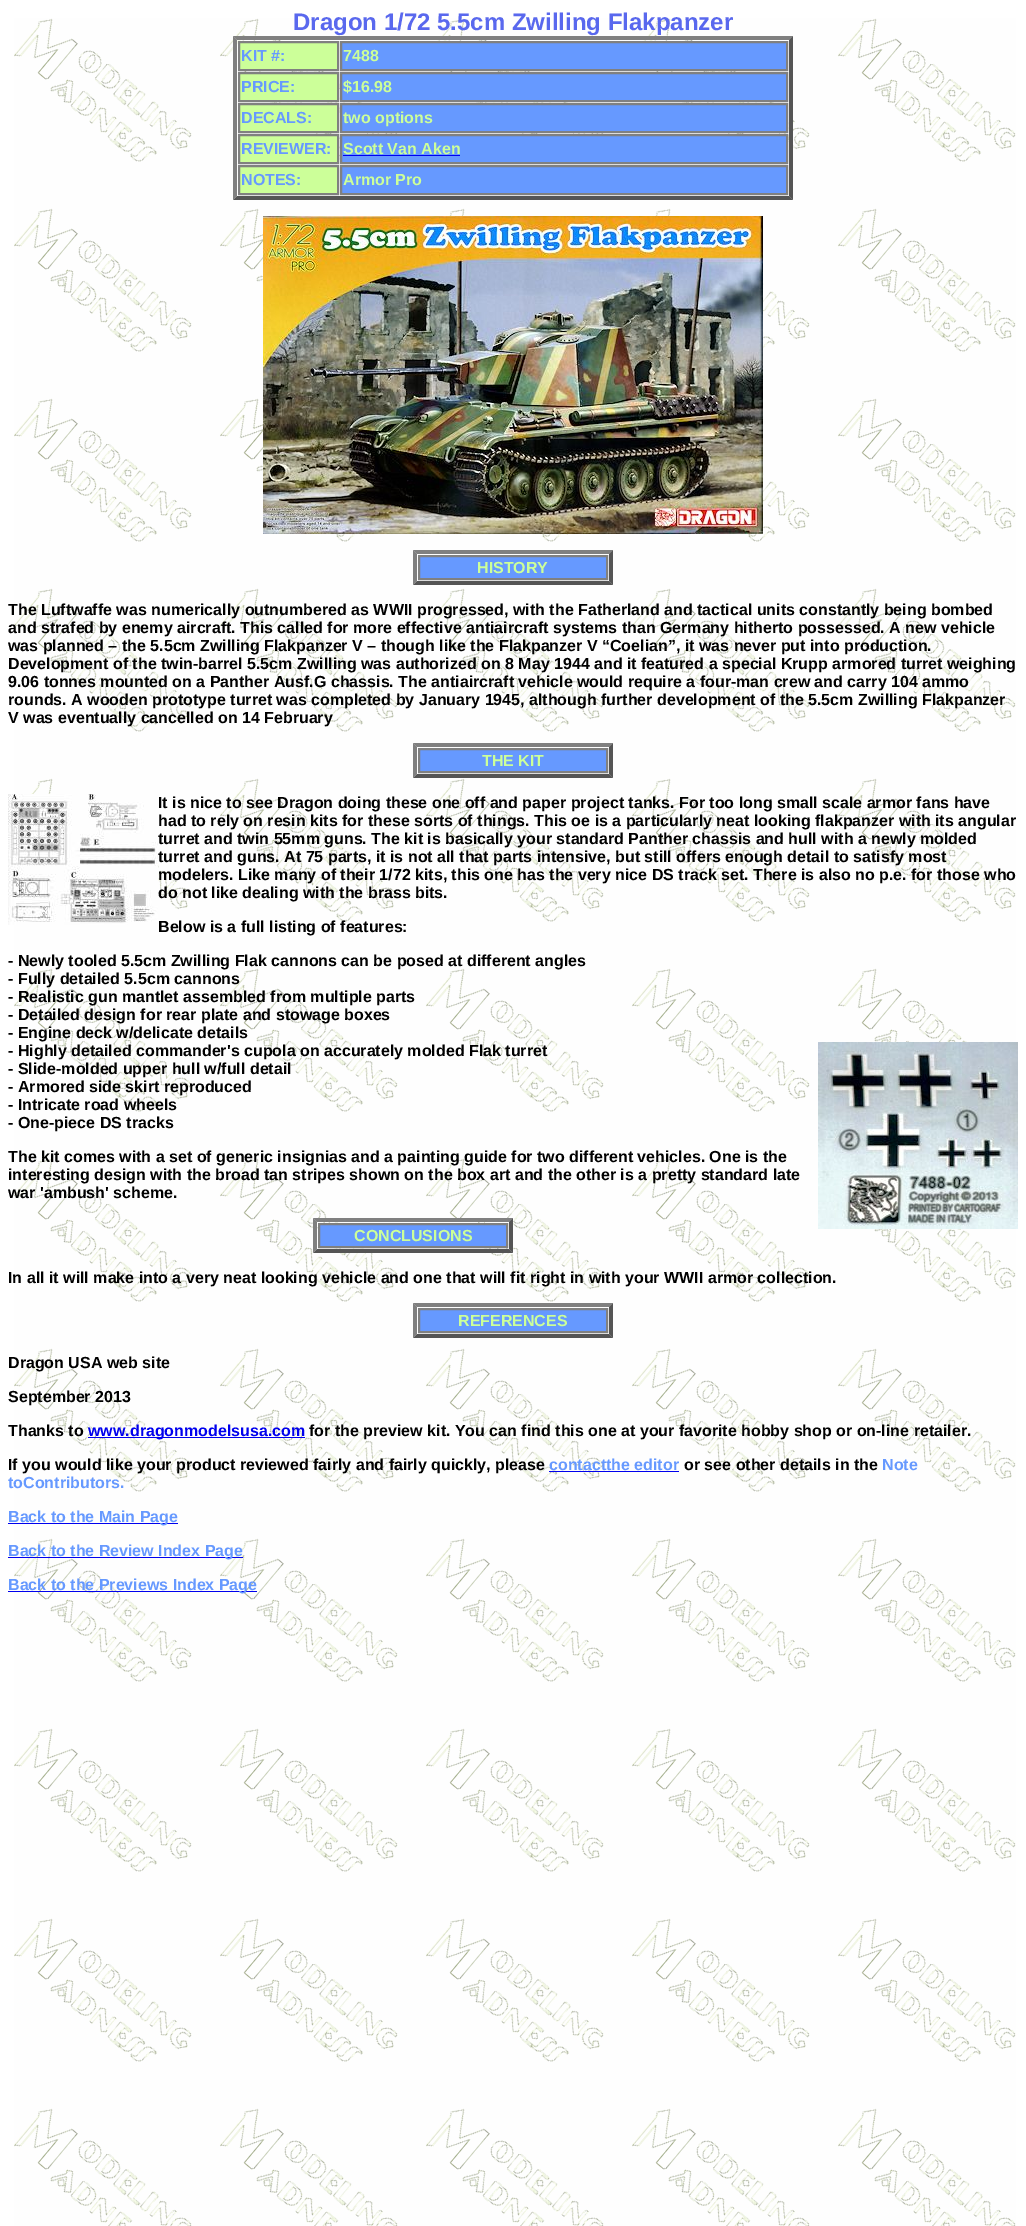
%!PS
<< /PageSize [1026 2226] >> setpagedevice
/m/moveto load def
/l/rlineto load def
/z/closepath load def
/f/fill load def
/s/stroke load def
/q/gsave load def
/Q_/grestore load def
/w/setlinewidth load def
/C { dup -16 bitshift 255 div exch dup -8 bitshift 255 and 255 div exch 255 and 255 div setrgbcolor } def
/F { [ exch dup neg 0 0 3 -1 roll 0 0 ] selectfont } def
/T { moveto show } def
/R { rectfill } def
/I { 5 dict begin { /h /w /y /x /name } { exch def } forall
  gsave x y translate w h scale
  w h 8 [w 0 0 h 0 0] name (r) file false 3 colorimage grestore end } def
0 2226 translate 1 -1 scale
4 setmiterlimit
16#FFFFFF C
0 0 1026 2226 R
(1.rgb) 14 18 1002 2208 I
/LiberationSans-Bold 24 F
16#5968EE C
(Dragon 1/72 5.5cm Zwilling Flakpanzer) 293 30 T
16#808080 C
233 36 m 560 0 l -4 4 l -552 0 l z f
16#555555 C
793 36 m 0 164 l -4 -4 l 0 -156 l z f
793 200 m -560 0 l 4 -4 l 552 0 l z f
16#808080 C
233 200 m 0 -164 l 4 4 l 0 156 l z f
16#CCFF99 C
239 42 m 99 0 l 0 28 l -99 0 l z q f Q_
16#808080 C
2 w
s
/LiberationSans-Bold 16 F
16#6699FF C
(KIT #:) 241 61 T
341 42 m 446 0 l 0 28 l -446 0 l z q f Q_
16#808080 C
s
16#CCFF99 C
(7488) 343 61 T
239 73 m 99 0 l 0 28 l -99 0 l z q f Q_
16#808080 C
s
16#6699FF C
(PRICE:) 241 92 T
341 73 m 446 0 l 0 28 l -446 0 l z q f Q_
16#808080 C
s
16#CCFF99 C
($16.98) 343 92 T
239 104 m 99 0 l 0 28 l -99 0 l z q f Q_
16#808080 C
s
16#6699FF C
(DECALS:) 241 123 T
341 104 m 446 0 l 0 28 l -446 0 l z q f Q_
16#808080 C
s
16#CCFF99 C
(two options) 343 123 T
239 135 m 99 0 l 0 28 l -99 0 l z q f Q_
16#808080 C
s
16#6699FF C
(REVIEWER:) 241 154 T
341 135 m 446 0 l 0 28 l -446 0 l z q f Q_
16#808080 C
s
16#CCFF99 C
(Scott Van Aken) 343 154 T
16#0000EE C
343 155 117 1 R
16#CCFF99 C
239 166 m 99 0 l 0 28 l -99 0 l z q f Q_
16#808080 C
s
16#6699FF C
(NOTES:) 241 185 T
341 166 m 446 0 l 0 28 l -446 0 l z q f Q_
16#808080 C
s
16#CCFF99 C
(Armor Pro) 343 185 T
(2.rgb) 263 216 500 318 I
16#808080 C
413 550 m 200 0 l -4 4 l -192 0 l z f
16#555555 C
613 550 m 0 35 l -4 -4 l 0 -27 l z f
613 585 m -200 0 l 4 -4 l 192 0 l z f
16#808080 C
413 585 m 0 -35 l 4 4 l 0 27 l z f
16#6699FF C
419 556 m 188 0 l 0 23 l -188 0 l z q f Q_
16#808080 C
s
16#CCFF99 C
(HISTORY) 477 573 T
16#000000 C
(The Luftwaffe was numerically outnumbered as WWII progressed, with the Fatherland and tactical units constantly being bombed) 8 615 T
(and strafed by enemy aircraft. This called for more effective antiaircraft systems than Germany hitherto possessed. A new vehicle) 8 633 T
(was planned – the 5.5cm Zwilling Flakpanzer V – though like the Flakpanzer V “Coelian”, it was never put into production.) 8 651 T
(Development of the twin-barrel 5.5cm Zwilling was authorized on 8 May 1944 and it featured a special Krupp armored turret weighing) 8 669 T
(9.06 tonnes mounted on a Panther Ausf.G chassis. The antiaircraft vehicle would require a four-man crew and carry 104 ammo) 8 687 T
(rounds. A wooden prototype turret was completed by January 1945, although further development of the 5.5cm Zwilling Flakpanzer) 8 705 T
(V was eventually cancelled on 14 February) 8 723 T
16#808080 C
413 743 m 200 0 l -4 4 l -192 0 l z f
16#555555 C
613 743 m 0 35 l -4 -4 l 0 -27 l z f
613 778 m -200 0 l 4 -4 l 192 0 l z f
16#808080 C
413 778 m 0 -35 l 4 4 l 0 27 l z f
16#6699FF C
419 749 m 188 0 l 0 23 l -188 0 l z q f Q_
16#808080 C
s
16#CCFF99 C
(THE KIT) 482 766 T
(3.rgb) 8 794 150 131 I
16#000000 C
(It is nice to see Dragon doing these one off and paper project tanks. For too long small scale armor fans have) 158 808 T
(had to rely on resin kits for these sorts of things. This oe is a particularly neat looking flakpanzer with its angular) 158 826 T
(turret and twin 55mm guns. The kit is basically your standard Panther chassis and hull with a newly molded) 158 844 T
(turret and guns. At 75 parts, it is not all that parts intensive, but still offers enough detail to satisfy most) 158 862 T
(modelers. Like many of their 1/72 kits, this one has the very nice DS track set. There is also no p.e. for those who) 158 880 T
(do not like dealing with the brass bits.) 158 898 T
(Below is a full listing of features:) 158 932 T
(- Newly tooled 5.5cm Zwilling Flak cannons can be posed at different angles) 8 966 T
(- Fully detailed 5.5cm cannons) 8 984 T
(- Realistic gun mantlet assembled from multiple parts) 8 1002 T
(- Detailed design for rear plate and stowage boxes) 8 1020 T
(- Engine deck w/delicate details) 8 1038 T
(- Highly detailed commander's cupola on accurately molded Flak turret) 8 1056 T
(4.rgb) 818 1042 200 187 I
(- Slide-molded upper hull w/full detail) 8 1074 T
(- Armored side skirt reproduced) 8 1092 T
(- Intricate road wheels) 8 1110 T
(- One-piece DS tracks) 8 1128 T
(The kit comes with a set of generic insignias and a painting guide for two different vehicles. One is the) 8 1162 T
(interesting design with the broad tan stripes shown on the box art and the other is a pretty standard late) 8 1180 T
(war 'ambush' scheme.) 8 1198 T
16#808080 C
313 1218 m 200 0 l -4 4 l -192 0 l z f
16#555555 C
513 1218 m 0 35 l -4 -4 l 0 -27 l z f
513 1253 m -200 0 l 4 -4 l 192 0 l z f
16#808080 C
313 1253 m 0 -35 l 4 4 l 0 27 l z f
16#6699FF C
319 1224 m 188 0 l 0 23 l -188 0 l z q f Q_
16#808080 C
s
16#CCFF99 C
(CONCLUSIONS) 354 1241 T
16#000000 C
(In all it will make into a very neat looking vehicle and one that will fit right in with your WWII armor collection.) 8 1283 T
16#808080 C
413 1303 m 200 0 l -4 4 l -192 0 l z f
16#555555 C
613 1303 m 0 35 l -4 -4 l 0 -27 l z f
613 1338 m -200 0 l 4 -4 l 192 0 l z f
16#808080 C
413 1338 m 0 -35 l 4 4 l 0 27 l z f
16#6699FF C
419 1309 m 188 0 l 0 23 l -188 0 l z q f Q_
16#808080 C
s
16#CCFF99 C
(REFERENCES) 458 1326 T
16#000000 C
(Dragon USA web site) 8 1368 T
(September 2013) 8 1402 T
(Thanks to) 8 1436 T
16#0000EE C
88 1437 217 1 R
(www.dragonmodelsusa.com) 88 1436 T
16#000000 C
(for the preview kit. You can find this one at your favorite hobby shop or on-line retailer.) 309 1436 T
(If you would like your product reviewed fairly and fairly quickly, please) 8 1470 T
16#6699FF C
(contactthe editor) 549 1470 T
16#0000EE C
549 1471 130 1 R
16#000000 C
(or see other details in the) 684 1470 T
16#6699FF C
(Note) 882 1470 T
(toContributors.) 8 1488 T
16#0000EE C
8 1523 170 1 R
16#6699FF C
(Back to the Main Page) 8 1522 T
16#0000EE C
8 1557 235 1 R
16#6699FF C
(Back to the Review Index Page) 8 1556 T
16#0000EE C
8 1591 249 1 R
16#6699FF C
(Back to the Previews Index Page) 8 1590 T
showpage
